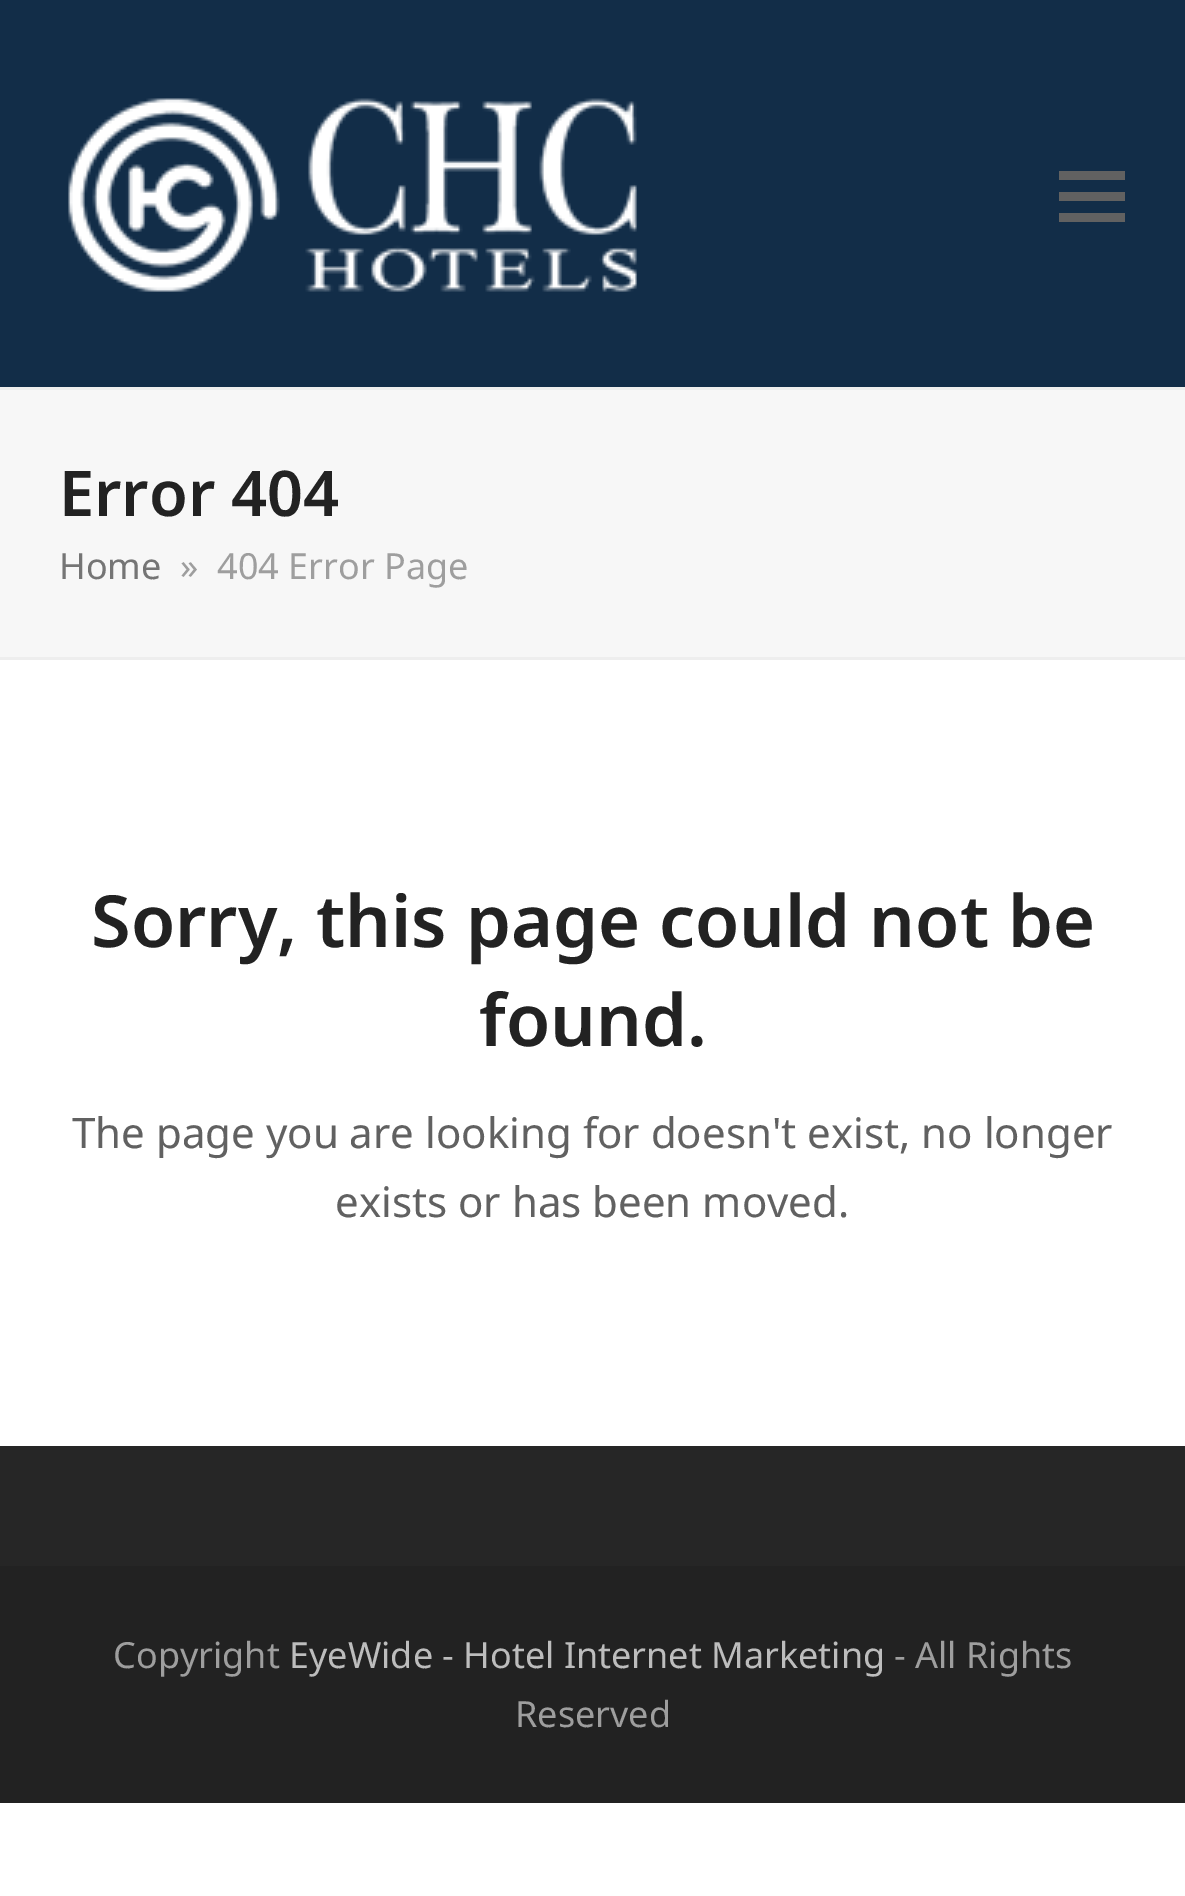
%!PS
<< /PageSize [1185 1896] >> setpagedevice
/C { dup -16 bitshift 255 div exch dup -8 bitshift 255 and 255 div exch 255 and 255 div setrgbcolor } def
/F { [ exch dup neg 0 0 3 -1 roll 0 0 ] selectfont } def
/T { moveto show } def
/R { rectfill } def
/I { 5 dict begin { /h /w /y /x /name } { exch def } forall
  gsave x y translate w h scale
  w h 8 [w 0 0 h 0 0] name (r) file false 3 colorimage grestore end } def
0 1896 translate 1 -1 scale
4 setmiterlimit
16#FFFFFF C
0 0 1185 1896 R
16#122D48 C
0 0 1185 387 R
(1.rgb) 68 98 569 194 I
16#616161 C
1059 192 66 9 R
1059 171 66 9 R
1059 213 66 9 R
16#F7F7F7 C
0 390 1185 267 R
16#EEEEEE C
0 387 1185 3 R
0 657 1185 3 R
/NotoSans-SemiBold 63 F
16#222222 C
(Error 404) 59 516 T
/NotoSans-Regular 36 F
16#757575 C
(Home) 59 579 T
16#9E9E9E C
(») 180 579 T
(404 Error Page) 217 579 T
/NotoSans-SemiBold 72 F
16#222222 C
(Sorry, this page could not be) 91 947 T
(found.) 479 1046 T
/NotoSans-Regular 42 F
16#616161 C
(The page you are looking for doesn't exist, no longer) 72 1148 T
(exists or has been moved.) 335 1217 T
16#262626 C
0 1446 1185 120 R
16#222222 C
0 1566 1185 237 R
/NotoSans-Regular 36 F
16#9E9E9E C
(Copyright) 113 1668 T
16#BDBDBD C
(EyeWide - Hotel Internet Marketing) 289 1668 T
16#9E9E9E C
(- All Rights) 894 1668 T
(Reserved) 515 1727 T
showpage
